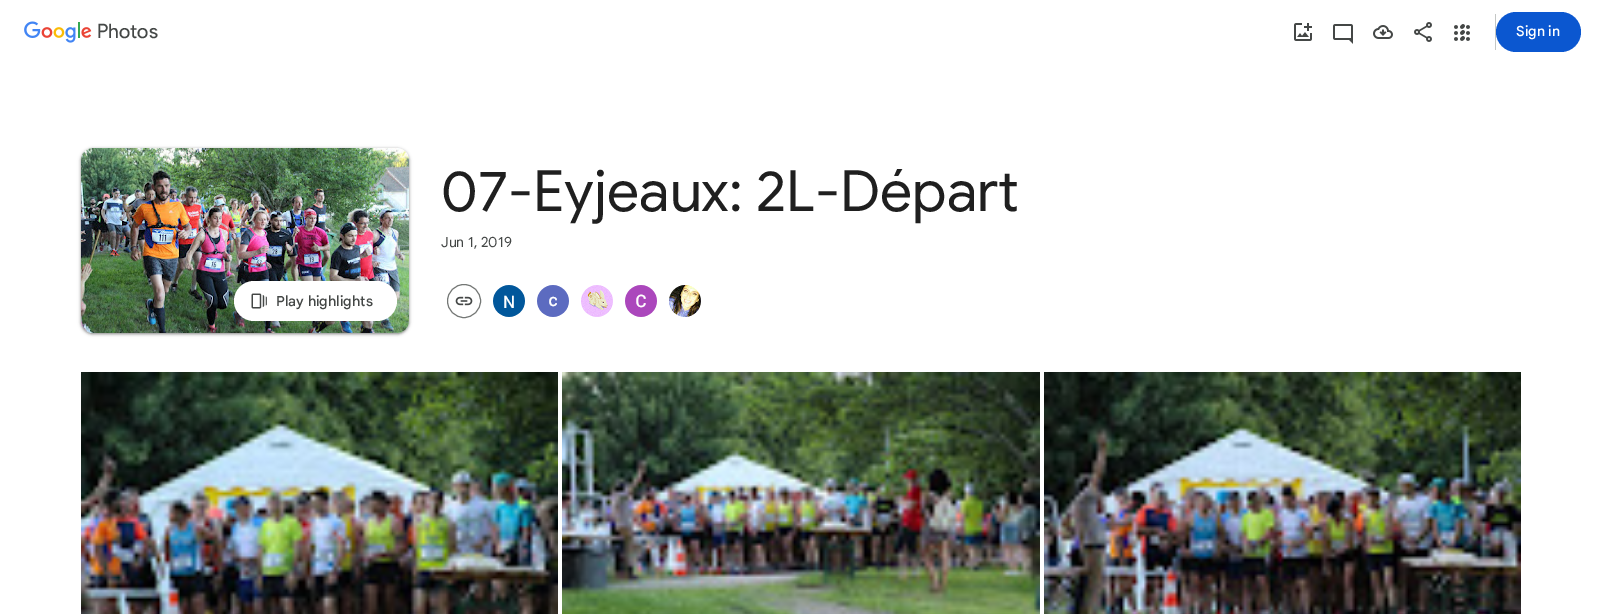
%!PS
<< /PageSize [1617 614] /PageUsesTransparency true >> setpagedevice
/f/fill load def
/s/stroke load def
/C { dup -16 bitshift 255 div exch dup -8 bitshift 255 and 255 div exch 255 and 255 div setrgbcolor } def
/F { [ exch dup neg 0 0 3 -1 roll 0 0 ] selectfont } def
/T { moveto show } def
/R { rectfill } def
/A { dup .setfillconstantalpha .setstrokeconstantalpha } def
/O { newpath 0 360 arc closepath } def
/Q { 5 dict begin { /r /h /w /y /x } { exch def } forall
  x r add y moveto x w add y 2 copy h add r arct x w add y h add x 1 index r arct
  x y h add x y r arct x y 2 copy exch w add exch r arct closepath end } def
/S { 12 dict begin { /a /b /q /h /w /y /x } { exch def } forall gsave /was 0 def
  9 -2 -9 { dup b mul 4 div /e exch def 1 sub .425 mul 2.718 exch exp 1 add a .99 .min exch div /now exch def
    1 1 now sub 1 was sub div sub A /was now def
    w h .min e 2 mul add 0 gt { x e sub y e sub w e 2 mul add h e 2 mul add
      q e add b .6 mul add w h .min 2 div e add .min 0 .max Q fill } if } for grestore end } def
/I { 5 dict begin { /h /w /y /x /name } { exch def } forall
  gsave x y translate w h scale
  w h 8 [w 0 0 h 0 0] name (r) file false 3 colorimage grestore end } def
0 .pushpdf14devicefilter
0 614 translate 1 -1 scale
4 setmiterlimit
16#FFFFFF C
0 0 1617 614 R
(1.rgb) 24 21 68 22 I
/ProductSans-Regular 20 F
16#444746 C
(Photos) 97 38 T
(2.rgb) 1294 23 18 18 I
(3.rgb) 1333 24 20 20 I
(4.rgb) 1373 25 20 14 I
(5.rgb) 1414 22 18 20 I
(6.rgb) 1461 24 4 16 I
16#C4C7C5 C
1495 14 1 36 R
/GoogleSans-Regular 57 F
16#1F1F1F C
(07-Eyjeaux: 2L-Départ) 441 211 T
/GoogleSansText-Regular 14 F
16#444746 C
(Jun 1, 2019) 441 247 T
16#747775 C
464 301 16.5 O s
(7.rgb) 455 296 18 10 I
(8.rgb) 493 285 32 32 I
(9.rgb) 537 285 32 32 I
(10.rgb) 581 285 32 32 I
(11.rgb) 625 285 32 32 I
(12.rgb) 669 285 32 32 I
16#000000 C
80 148 330 187 13 1.5 .15 S
81 149 328 185 12 1 .3 S
(13.rgb) 81 148 328 185 I
16#FFFFFF C
234 281 163 40 20 Q f
(14.rgb) 251 293 16 16 I
/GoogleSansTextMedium-Medium 14 F
16#444746 C
(Play highlights) 276 306 T
(15.rgb) 81 372 477 242 I
(16.rgb) 562 372 478 242 I
(17.rgb) 1044 372 477 242 I
(18.rgb) 1454 25 16 16 I
16#0B57D0 C
1496 12 85 40 20 Q f
16#FFFFFF C
(Sign in) 1516 36 T
.poppdf14devicefilter showpage
